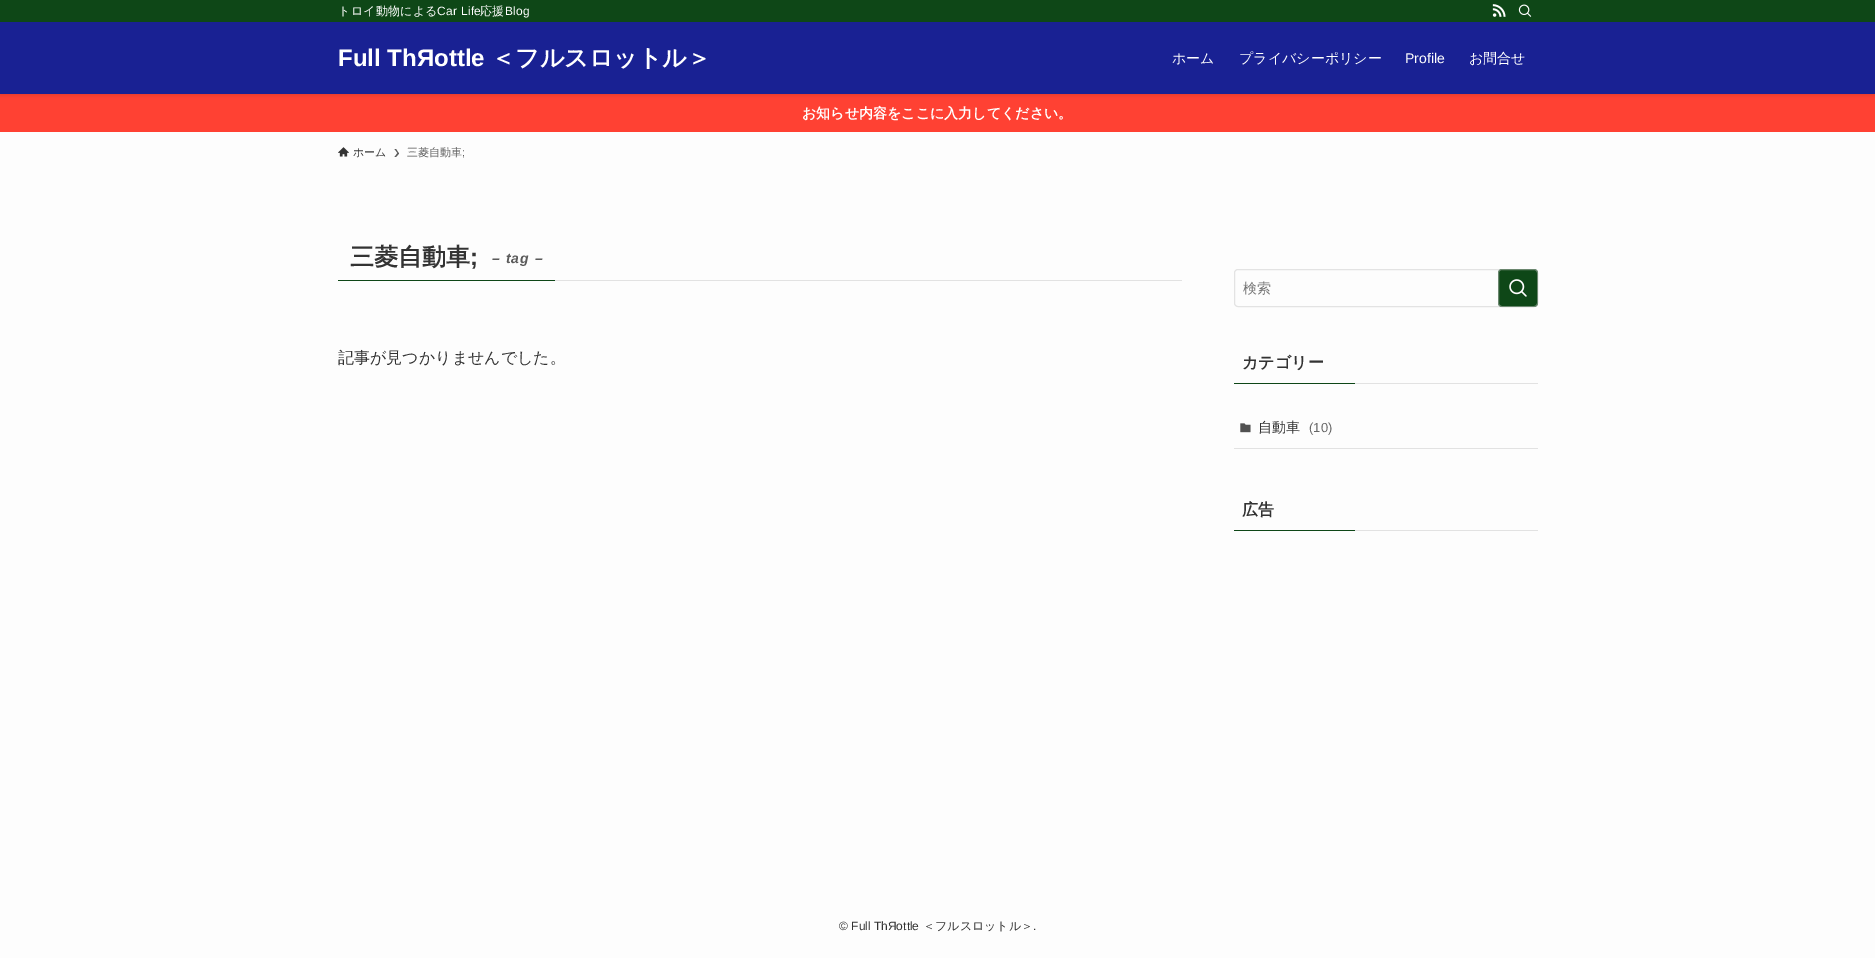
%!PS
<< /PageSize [1875 958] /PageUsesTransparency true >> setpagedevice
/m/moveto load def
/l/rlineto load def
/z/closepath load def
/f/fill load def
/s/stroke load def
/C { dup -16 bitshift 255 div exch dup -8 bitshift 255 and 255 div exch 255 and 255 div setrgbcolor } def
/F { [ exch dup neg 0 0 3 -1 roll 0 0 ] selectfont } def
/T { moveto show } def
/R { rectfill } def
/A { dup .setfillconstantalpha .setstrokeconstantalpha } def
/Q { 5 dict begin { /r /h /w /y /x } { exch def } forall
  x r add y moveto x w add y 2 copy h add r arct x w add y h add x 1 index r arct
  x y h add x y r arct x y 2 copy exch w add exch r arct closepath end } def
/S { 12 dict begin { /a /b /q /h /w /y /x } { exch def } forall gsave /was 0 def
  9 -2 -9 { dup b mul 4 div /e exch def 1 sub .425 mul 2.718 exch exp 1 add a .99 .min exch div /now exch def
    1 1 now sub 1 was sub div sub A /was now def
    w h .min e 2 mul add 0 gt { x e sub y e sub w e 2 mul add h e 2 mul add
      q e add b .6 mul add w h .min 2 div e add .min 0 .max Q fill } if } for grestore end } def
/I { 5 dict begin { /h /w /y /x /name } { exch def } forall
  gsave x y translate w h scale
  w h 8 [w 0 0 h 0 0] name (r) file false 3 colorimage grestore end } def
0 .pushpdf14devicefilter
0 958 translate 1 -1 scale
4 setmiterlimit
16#FDFDFD C
0 0 1875 958 R
16#FF4133 C
0 94 1875 38 R
16#000000 C
0 1 1875 94 0 2 .12 S
16#192193 C
0 22 1875 72 R
16#0E4717 C
0 0 1875 22 R
/WenQuanYiZenHei-Medium 12 F
16#FFFFFF C
338 15 m .25 0 (トロイ動物による) ashow
/LiberationSans-Regular 12 F
437 15 m .25 0 (Car Life) ashow
/WenQuanYiZenHei-Medium 12 F
480 15 m .25 0 (応援) ashow
/LiberationSans-Regular 12 F
505 15 m .25 0 (Blog) ashow
(1.rgb) 1492 4 14 13 I
(2.rgb) 1518 4 14 13 I
/LiberationSans-Bold 24 F
(Full ThЯottle) 338 66 T
/WenQuanYiZenHei-Bold 24 F
(＜フルスロットル＞) 491 66 T
/WenQuanYiZenHei-Medium 14 F
(ホーム) 1172 63 T
(プライバシーポリシー) 1239 63 T
/LiberationSans-Regular 14 F
(Profile) 1405 63 T
/WenQuanYiZenHei-Medium 14 F
(お問合せ) 1469 63 T
/WenQuanYiZenHei-Bold 14 F
(お知らせ内容をここに入力してください。) 802 118 T
(3.rgb) 338 147 11 10 I
/WenQuanYiZenHei-Medium 11 F
16#333333 C
(ホーム) 353 156 T
16#5B5B5B C
396 149 m -1.5 0 l 3 4 l -3 4 l 1.5 0 l 3 -3.5 l z f
(三菱自動車) 407 156 T
/LiberationSans-Regular 11 F
(;) 462 156 T
16#E2E2E2 C
555 280 627 1 R
16#0E4717 C
338 280 217 1 R
/WenQuanYiZenHei-Bold 24 F
16#333333 C
(三菱自動車) 350 265 T
/LiberationSans-Bold 24 F
(;) 470 265 T
/LiberationSans-BoldItalic 14 F
16#5B5B5B C
492 263 m 1 0 (– tag –) ashow
/WenQuanYiZenHei-Medium 16 F
16#333333 C
(記事が見つかりませんでした。) 338 363 T
16#E3E3E3 C
1234.5 269.5 303 37 3.5 Q s
/WenQuanYiZenHei-Medium 14 F
16#757575 C
(検索) 1243 293 T
16#0E4717 C
1498 269 40 38 4 Q f
0.5 A
16#C7C7C7 C
1498.5 269.5 39 37 3.5 Q s
1 A
(4.rgb) 1509 279 18 18 I
/WenQuanYiZenHei-Bold 16 F
16#333333 C
(カテゴリー) 1242 368 T
16#0E4717 C
1234 383 121 1 R
16#E2E2E2 C
1355 383 183 1 R
1234 448 304 1 R
(5.rgb) 1240 423 11 10 I
/WenQuanYiZenHei-Medium 14 F
16#333333 C
(自動車) 1258 432 T
/LiberationSans-Regular 13 F
16#666666 C
(\(10\)) 1309 432 T
/WenQuanYiZenHei-Bold 16 F
16#333333 C
(広告) 1242 515 T
16#0E4717 C
1234 530 121 1 R
16#E2E2E2 C
1355 530 183 1 R
/LiberationSans-Regular 12 F
16#333333 C
(© Full ThЯottle) 839 930 T
/WenQuanYiZenHei-Medium 12 F
(＜フルスロットル＞) 923 930 T
/LiberationSans-Regular 12 F
(.) 1033 930 T
.poppdf14devicefilter showpage
